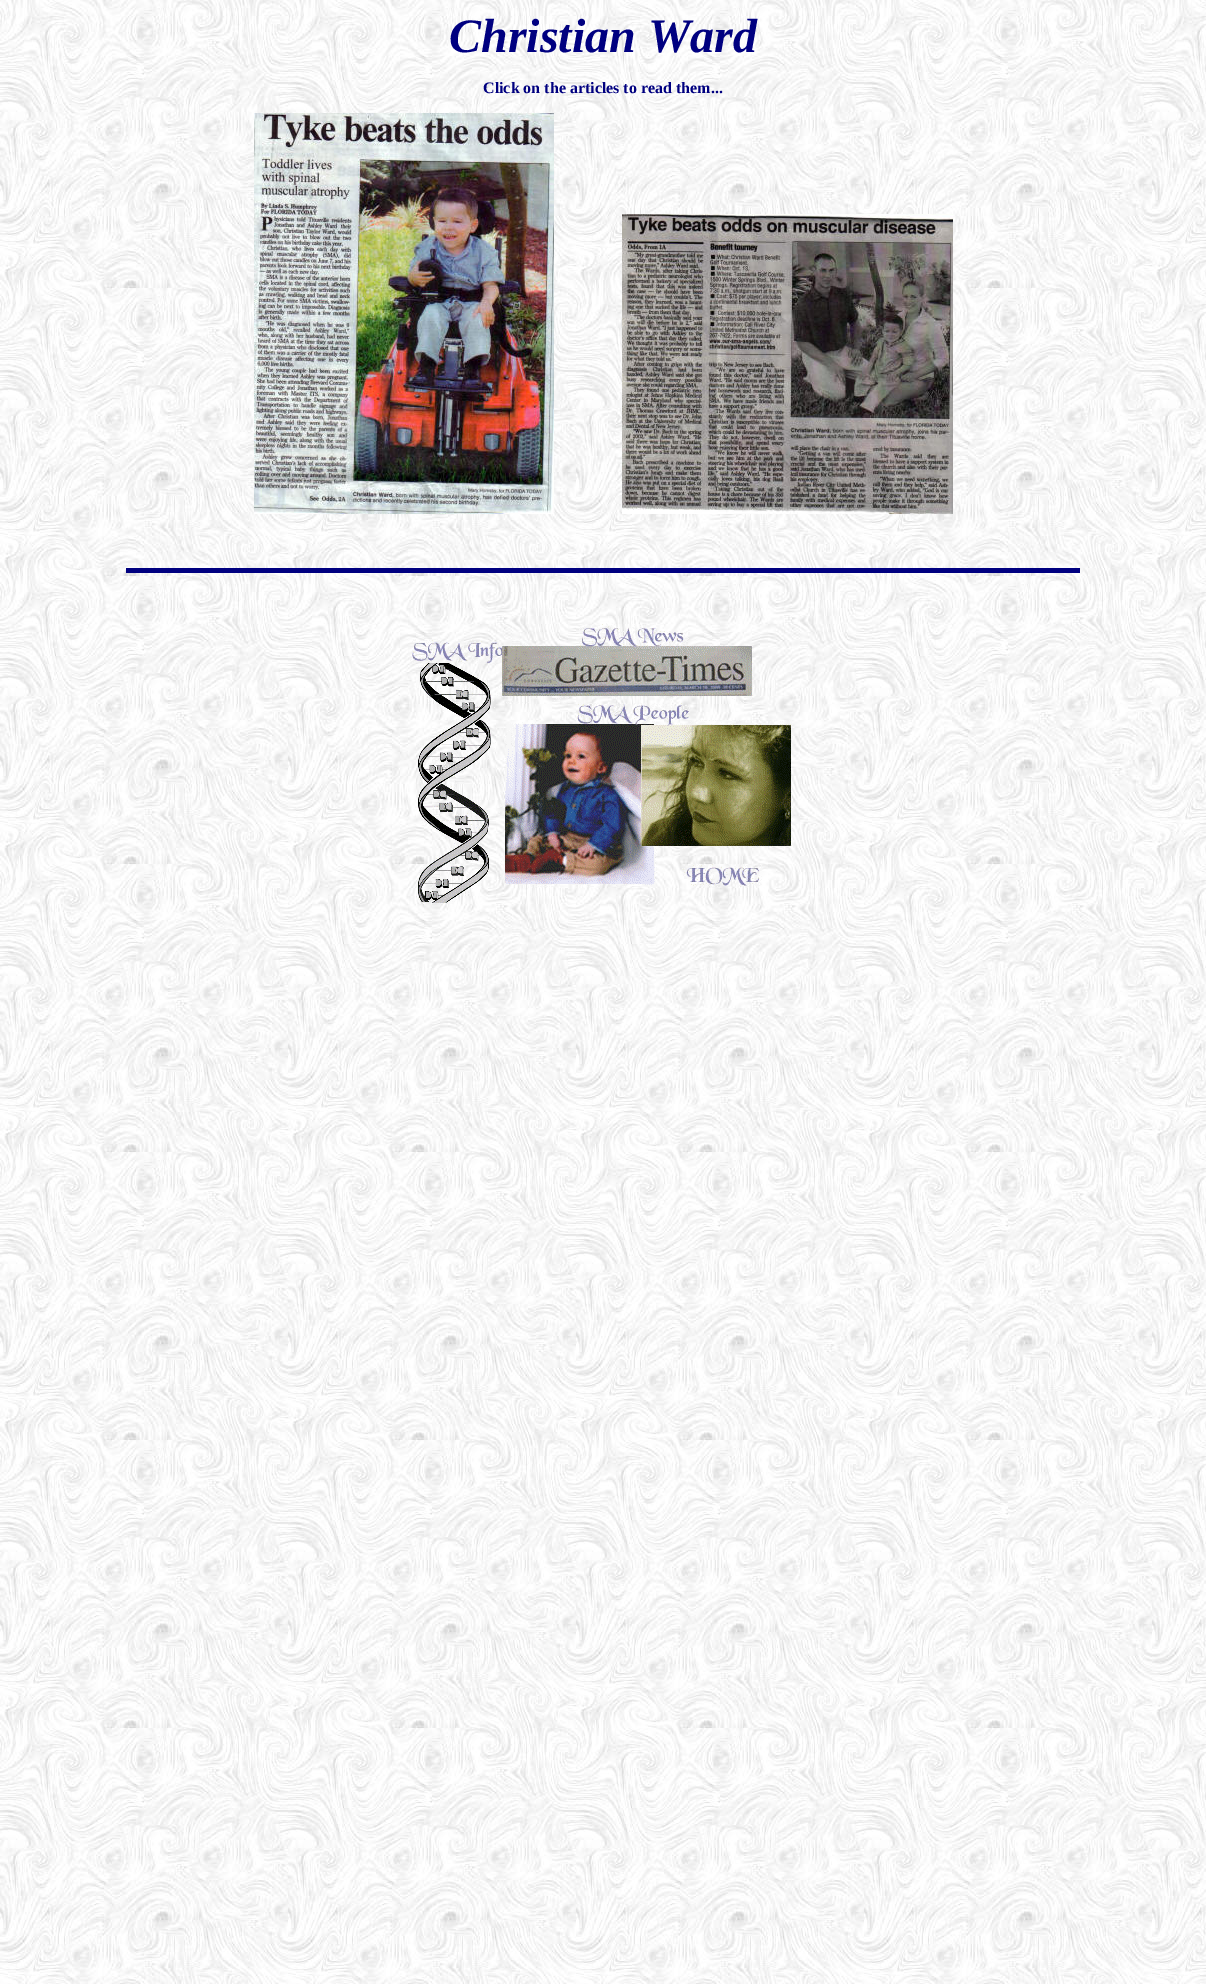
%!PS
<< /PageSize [1206 1984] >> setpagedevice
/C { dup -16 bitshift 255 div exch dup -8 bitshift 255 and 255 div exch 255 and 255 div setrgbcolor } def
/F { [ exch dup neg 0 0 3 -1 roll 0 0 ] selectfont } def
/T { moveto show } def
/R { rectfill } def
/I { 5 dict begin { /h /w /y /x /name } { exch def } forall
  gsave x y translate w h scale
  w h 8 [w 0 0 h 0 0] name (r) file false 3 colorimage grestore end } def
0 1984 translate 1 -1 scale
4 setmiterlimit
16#FFFFFF C
0 0 1206 1984 R
(1.rgb) 0 0 1206 1984 I
/LiberationSerif-BoldItalic 48 F
16#000080 C
(Christian Ward) 449 52 T
/LiberationSerif-Bold 16 F
(Click on the articles to read them...) 483 93 T
(2.rgb) 254 113 300 401 I
(3.rgb) 622 214 331 300 I
126 568 954 5 R
(4.rgb) 410 623 383 280 I
showpage
